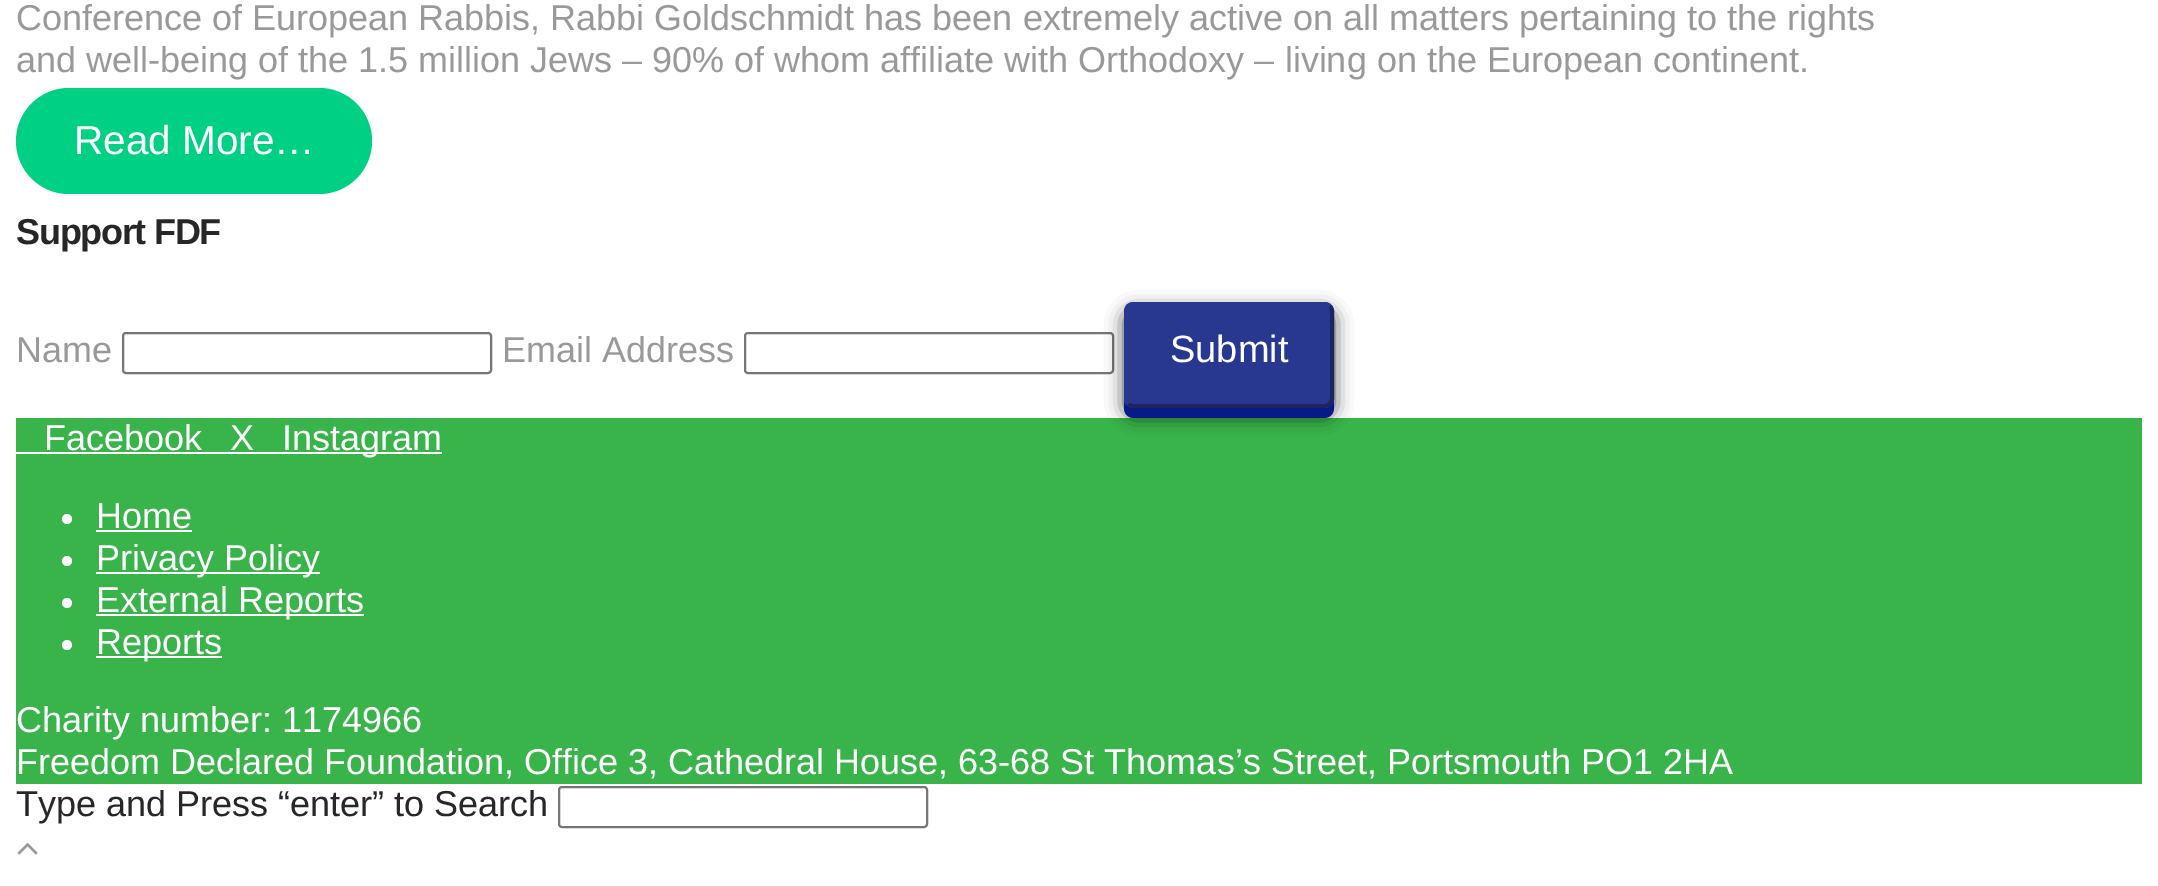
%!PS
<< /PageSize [2158 886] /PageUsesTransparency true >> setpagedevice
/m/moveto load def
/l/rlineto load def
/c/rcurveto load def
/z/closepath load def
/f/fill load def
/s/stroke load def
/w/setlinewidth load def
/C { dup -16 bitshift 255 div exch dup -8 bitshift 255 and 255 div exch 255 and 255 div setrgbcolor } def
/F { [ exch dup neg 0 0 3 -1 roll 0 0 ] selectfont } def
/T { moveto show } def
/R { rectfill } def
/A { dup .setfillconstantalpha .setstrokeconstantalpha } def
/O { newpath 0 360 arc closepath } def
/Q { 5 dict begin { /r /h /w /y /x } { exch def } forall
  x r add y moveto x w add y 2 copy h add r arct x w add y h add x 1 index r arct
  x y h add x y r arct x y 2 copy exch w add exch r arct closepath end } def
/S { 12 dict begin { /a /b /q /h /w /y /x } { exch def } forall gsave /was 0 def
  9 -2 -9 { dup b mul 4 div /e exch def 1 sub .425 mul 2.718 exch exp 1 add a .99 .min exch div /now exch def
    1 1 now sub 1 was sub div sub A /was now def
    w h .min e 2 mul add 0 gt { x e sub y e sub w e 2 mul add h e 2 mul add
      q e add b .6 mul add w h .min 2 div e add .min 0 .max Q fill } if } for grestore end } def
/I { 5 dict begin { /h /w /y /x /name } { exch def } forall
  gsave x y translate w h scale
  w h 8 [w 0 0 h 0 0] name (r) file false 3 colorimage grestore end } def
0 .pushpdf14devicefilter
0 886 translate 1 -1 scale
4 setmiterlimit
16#FFFFFF C
0 0 2158 886 R
/LiberationSans-Regular 36 F
16#999999 C
(Conference of European Rabbis, Rabbi Goldschmidt has been extremely active on all matters pertaining to the rights) 16 30 T
(and well-being of the 1.5 million Jews – 90% of whom affiliate with Orthodoxy – living on the European continent.) 16 72 T
16#00D084 C
16 88 356 106 53 Q f
/LiberationSans-Regular 40.5 F
16#FFFFFF C
(Read More…) 74 154 T
/LiberationSans-Bold 36 F
16#272727 C
16 244 m -1.25 0 (Support FDF) ashow
/LiberationSans-Regular 36 F
16#999999 C
(Name) 16 362 T
16#767676 C
2 w
123 333 368 40 3 Q s
16#999999 C
(Email Address) 502 362 T
16#767676 C
745 333 368 40 3 Q s
16#39B44A C
16 418 2126 366 R
16#000000 C
1124 310 210 106 10 9 .75 S
16#071A85 C
1124 398 m 0 10 l 0 6 4 10 10 10 c 190 0 l 6 0 10 -4 10 -10 c 0 -10 l 0 6 -4 10 -10 10 c -190 0 l -6 0 -10 -4 -10 -10 c z f
16#283891 C
1124 302 210 106 10 Q f
16#1B2561 C
4 w
1330 306 m 1 1.5 2 3.5 2 5.5 c 0 87 l 0 2 -1 4 -2 5.5 c -1.5 1 -3.5 2 -5.5 2 c -191 0 l -2 0 -4 -1 -5.5 -2 c s
16#283891 C
1128 404 m -1 -1.5 -2 -3.5 -2 -5.5 c 0 -87 l 0 -2 1 -4 2 -5.5 c 1.5 -1 3.5 -2 5.5 -2 c 191 0 l 2 0 4 1 5.5 2 c s
/LiberationSans-Regular 38 F
16#FFFFFF C
(Submit) 1170 362 T
/LiberationSans-Regular 36 F
(Facebook) 44 450 T
16 452 426 2 R
(X) 230 450 T
(Instagram) 282 450 T
67 519 5 O f
(Home) 96 528 T
96 530 96 2 R
67 561 5 O f
96 572 224 2 R
(Privacy Policy) 96 570 T
67 603 5 O f
96 614 268 2 R
(External Reports) 96 612 T
67 645 5 O f
96 656 126 2 R
(Reports) 96 654 T
(Charity number: 1174966) 16 732 T
(Freedom Declared Foundation, Office 3, Cathedral House, 63-68 St Thomas’s Street, Portsmouth PO1 2HA) 16 774 T
16#272727 C
(Type and Press “enter” to Search) 16 816 T
16#767676 C
2 w
559 787 368 40 3 Q s
(1.rgb) 17 843 21 12 I
.poppdf14devicefilter showpage
